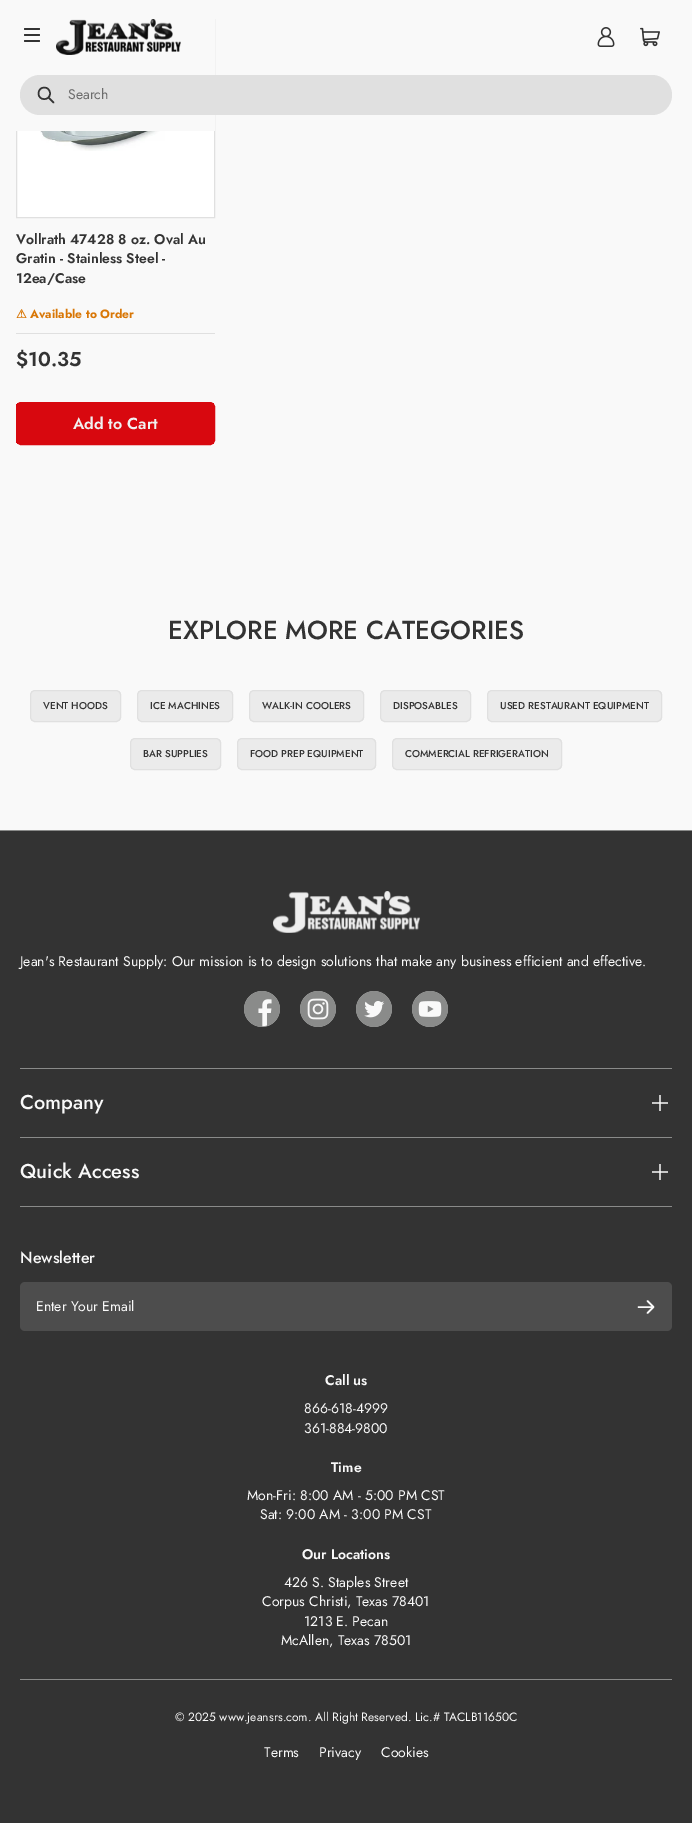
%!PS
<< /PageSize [692 1823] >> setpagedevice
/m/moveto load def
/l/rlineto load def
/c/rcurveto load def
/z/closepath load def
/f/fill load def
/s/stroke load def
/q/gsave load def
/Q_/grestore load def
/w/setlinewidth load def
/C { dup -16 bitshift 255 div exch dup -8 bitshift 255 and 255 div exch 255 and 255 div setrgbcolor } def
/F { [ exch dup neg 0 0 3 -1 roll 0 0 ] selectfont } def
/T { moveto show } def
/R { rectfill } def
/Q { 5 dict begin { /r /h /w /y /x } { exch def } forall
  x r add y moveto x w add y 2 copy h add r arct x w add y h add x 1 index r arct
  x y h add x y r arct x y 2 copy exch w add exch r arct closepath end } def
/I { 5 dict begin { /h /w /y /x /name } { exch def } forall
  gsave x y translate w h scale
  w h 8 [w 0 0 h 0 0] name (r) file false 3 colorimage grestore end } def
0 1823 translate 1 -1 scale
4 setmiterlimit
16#F9F9F9 C
0 0 692 1823 R
16#FFFFFF C
17 131 197 86 R
16#E0E0E0 C
16.5 19.5 198 198 rectstroke
16#F9F9F9 C
16 19 199 112 R
16#333333 C
24 28 16 2 1 Q f
24 40 16 2 1 Q f
24 34 16 2 1 Q f
(1.rgb) 56 19 125 36 I
(2.rgb) 597 27 18 20 I
(3.rgb) 640 27 20 20 I
16#E0E0E0 C
20 75 652 40 20 Q f
16#333333 C
1.5 w
1 setlinecap
1 setlinejoin
53.5 102.5 m -5 -5 l 50 93.5 m 0 7.5 -11.5 7.5 -11.5 0 c 0 -8 11.5 -8 11.5 0 c z s
/Jost-Regular 14 F
16#6C6C6C C
(Search) 68 99 T
(4.rgb) 40 131 153 20 I
/Jost-SemiBold 14 F
16#333333 C
(Vollrath 47428 8 oz. Oval Au) 16 244 T
(Gratin - Stainless Steel -) 16 263 T
(12ea/Case) 16 283 T
/DejaVuSans-Bold 12 F
16#D97706 C
(⚠) 16 318 T
/Jost-Bold 12 F
(Available to Order) 30 318 T
16#E0E0E0 C
16 333 199 1 R
/Jost-SemiBold 20 F
16#333333 C
($10.35) 16 366 T
q
16 402 199 43 5 Q clip newpath
q 16 403 m 198 0 l 0 41 l -198 0 l z clip newpath
<< /ShadingType 2 /ColorSpace /DeviceRGB /Coords [-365 353 202 494] /Extend [true true] /Function << /FunctionType 3 /Domain [0 1] /Functions [<< /FunctionType 2 /Domain [0 1] /C0 [.655 .024 .047] /C1 [.655 .024 .047] /N 1 >> << /FunctionType 2 /Domain [0 1] /C0 [.847 .031 .059] /C1 [.847 .031 .059] /N 1 >>] /Bounds [.6] /Encode [0 1 0 1] >> >> shfill Q_
Q_
16#D8080F C
1 w
0 setlinecap
0 setlinejoin
16.5 402.5 198 42 4.5 Q s
/Jost-SemiBold 16 F
16#F1F1F1 C
(Add to Cart) 73 429 T
/Jost-Medium 26 F
16#333333 C
(EXPLORE MORE CATEGORIES) 168 639 T
q
30 690 91 32 5 Q clip newpath
q 31 691 m 90 0 l 0 30 l -90 0 l z clip newpath
<< /ShadingType 2 /ColorSpace /DeviceRGB /Coords [35 674 294 738] /Extend [true true] /Function << /FunctionType 3 /Domain [0 1] /Functions [<< /FunctionType 2 /Domain [0 1] /C0 [.922 .922 .922] /C1 [.922 .922 .922] /N 1 >> << /FunctionType 2 /Domain [0 1] /C0 [.976 .976 .976] /C1 [.976 .976 .976] /N 1 >>] /Bounds [.6] /Encode [0 1 0 1] >> >> shfill Q_
Q_
16#E0E0E0 C
30.5 690.5 90 31 4.5 Q s
/Jost-Medium 10 F
16#333333 C
(VENT HOODS) 43 709 T
q
137 690 96 32 5 Q clip newpath
q 138 691 m 95 0 l 0 30 l -95 0 l z clip newpath
<< /ShadingType 2 /ColorSpace /DeviceRGB /Coords [143 672 415 740] /Extend [true true] /Function << /FunctionType 3 /Domain [0 1] /Functions [<< /FunctionType 2 /Domain [0 1] /C0 [.922 .922 .922] /C1 [.922 .922 .922] /N 1 >> << /FunctionType 2 /Domain [0 1] /C0 [.976 .976 .976] /C1 [.976 .976 .976] /N 1 >>] /Bounds [.6] /Encode [0 1 0 1] >> >> shfill Q_
Q_
16#E0E0E0 C
137.5 690.5 95 31 4.5 Q s
16#333333 C
(ICE MACHINES) 150 709 T
q
249 690 115 32 5 Q clip newpath
q 250 691 m 114 0 l 0 30 l -114 0 l z clip newpath
<< /ShadingType 2 /ColorSpace /DeviceRGB /Coords [256 665 583 747] /Extend [true true] /Function << /FunctionType 3 /Domain [0 1] /Functions [<< /FunctionType 2 /Domain [0 1] /C0 [.922 .922 .922] /C1 [.922 .922 .922] /N 1 >> << /FunctionType 2 /Domain [0 1] /C0 [.976 .976 .976] /C1 [.976 .976 .976] /N 1 >>] /Bounds [.6] /Encode [0 1 0 1] >> >> shfill Q_
Q_
16#E0E0E0 C
249.5 690.5 114 31 4.5 Q s
16#333333 C
(WALK-IN COOLERS) 262 709 T
q
380 690 91 32 5 Q clip newpath
q 381 691 m 90 0 l 0 30 l -90 0 l z clip newpath
<< /ShadingType 2 /ColorSpace /DeviceRGB /Coords [385 674 644 738] /Extend [true true] /Function << /FunctionType 3 /Domain [0 1] /Functions [<< /FunctionType 2 /Domain [0 1] /C0 [.922 .922 .922] /C1 [.922 .922 .922] /N 1 >> << /FunctionType 2 /Domain [0 1] /C0 [.976 .976 .976] /C1 [.976 .976 .976] /N 1 >>] /Bounds [.6] /Encode [0 1 0 1] >> >> shfill Q_
Q_
16#E0E0E0 C
380.5 690.5 90 31 4.5 Q s
16#333333 C
(DISPOSABLES) 393 709 T
q
487 690 175 32 5 Q clip newpath
q 488 691 m 174 0 l 0 30 l -174 0 l z clip newpath
<< /ShadingType 2 /ColorSpace /DeviceRGB /Coords [500 644 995 768] /Extend [true true] /Function << /FunctionType 3 /Domain [0 1] /Functions [<< /FunctionType 2 /Domain [0 1] /C0 [.922 .922 .922] /C1 [.922 .922 .922] /N 1 >> << /FunctionType 2 /Domain [0 1] /C0 [.976 .976 .976] /C1 [.976 .976 .976] /N 1 >>] /Bounds [.6] /Encode [0 1 0 1] >> >> shfill Q_
Q_
16#E0E0E0 C
487.5 690.5 174 31 4.5 Q s
16#333333 C
(USED RESTAURANT EQUIPMENT) 500 709 T
q
130 738 91 32 5 Q clip newpath
q 131 739 m 90 0 l 0 30 l -90 0 l z clip newpath
<< /ShadingType 2 /ColorSpace /DeviceRGB /Coords [135 722 394 786] /Extend [true true] /Function << /FunctionType 3 /Domain [0 1] /Functions [<< /FunctionType 2 /Domain [0 1] /C0 [.922 .922 .922] /C1 [.922 .922 .922] /N 1 >> << /FunctionType 2 /Domain [0 1] /C0 [.976 .976 .976] /C1 [.976 .976 .976] /N 1 >>] /Bounds [.6] /Encode [0 1 0 1] >> >> shfill Q_
Q_
16#E0E0E0 C
130.5 738.5 90 31 4.5 Q s
16#333333 C
(BAR SUPPLIES) 143 757 T
q
237 738 139 32 5 Q clip newpath
q 238 739 m 138 0 l 0 30 l -138 0 l z clip newpath
<< /ShadingType 2 /ColorSpace /DeviceRGB /Coords [247 705 640 803] /Extend [true true] /Function << /FunctionType 3 /Domain [0 1] /Functions [<< /FunctionType 2 /Domain [0 1] /C0 [.922 .922 .922] /C1 [.922 .922 .922] /N 1 >> << /FunctionType 2 /Domain [0 1] /C0 [.976 .976 .976] /C1 [.976 .976 .976] /N 1 >>] /Bounds [.6] /Encode [0 1 0 1] >> >> shfill Q_
Q_
16#E0E0E0 C
237.5 738.5 138 31 4.5 Q s
16#333333 C
(FOOD PREP EQUIPMENT) 250 757 T
q
392 738 170 32 5 Q clip newpath
q 393 739 m 169 0 l 0 30 l -169 0 l z clip newpath
<< /ShadingType 2 /ColorSpace /DeviceRGB /Coords [404 694 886 814] /Extend [true true] /Function << /FunctionType 3 /Domain [0 1] /Functions [<< /FunctionType 2 /Domain [0 1] /C0 [.922 .922 .922] /C1 [.922 .922 .922] /N 1 >> << /FunctionType 2 /Domain [0 1] /C0 [.976 .976 .976] /C1 [.976 .976 .976] /N 1 >>] /Bounds [.6] /Encode [0 1 0 1] >> >> shfill Q_
Q_
16#E0E0E0 C
392.5 738.5 169 31 4.5 Q s
16#333333 C
(COMMERCIAL REFRIGERATION) 405 757 T
0 831 692 992 R
16#8A8B8A C
0 830 692 1 R
(5.rgb) 273 891 147 42 I
/Jost-Regular 14 F
16#F9F9F9 C
(Jean's Restaurant Supply: Our mission is to design solutions that make any business efficient and effective.) 20 966 T
(6.rgb) 244 991 36 36 I
(7.rgb) 300 991 36 36 I
(8.rgb) 356 991 36 36 I
(9.rgb) 412 991 36 36 I
16#8A8B8A C
20 1068 652 1 R
20 1137 652 1 R
/Jost-Medium 20 F
16#F9F9F9 C
(Company) 20 1109 T
(10.rgb) 652 1095 16 16 I
16#8A8B8A C
20 1206 652 1 R
16#F9F9F9 C
(Quick Access) 20 1178 T
(10.rgb) 652 1164 16 16 I
/Jost-Medium 16 F
(Newsletter) 20 1263 T
16#4D4D4D C
20 1282 652 49 5 Q f
/Jost-Regular 14 F
16#F9F9F9 C
(Enter Your Email) 36 1311 T
1.5 w
1 setlinecap
1 setlinejoin
647.5 1301 m 6 6 l 653.5 1307 m -6 6 l 653.5 1307 m -15 0 l s
/Jost-SemiBold 14 F
(Call us) 325 1385 T
/Jost-Regular 14 F
(866-618-4999) 304 1413 T
(361-884-9800) 304 1433 T
/Jost-SemiBold 14 F
(Time) 331 1472 T
/Jost-Regular 14 F
(Mon-Fri: 8:00 AM - 5:00 PM CST) 247 1500 T
(Sat: 9:00 AM - 3:00 PM CST) 260 1519 T
/Jost-SemiBold 14 F
(Our Locations) 302 1559 T
/Jost-Regular 14 F
(426 S. Staples Street) 284 1587 T
(Corpus Christi, Texas 78401) 262 1606 T
(1213 E. Pecan) 304 1626 T
(McAllen, Texas 78501) 281 1645 T
16#8A8B8A C
20 1679 652 1 R
/Jost-Regular 12 F
16#F9F9F9 C
(© 2025 www.jeansrs.com. All Right Reserved. Lic.# TACLB11650C) 175 1721 T
/Jost-Regular 14 F
(Terms) 264 1757 T
(Privacy) 319 1757 T
(Cookies) 381 1757 T
showpage
